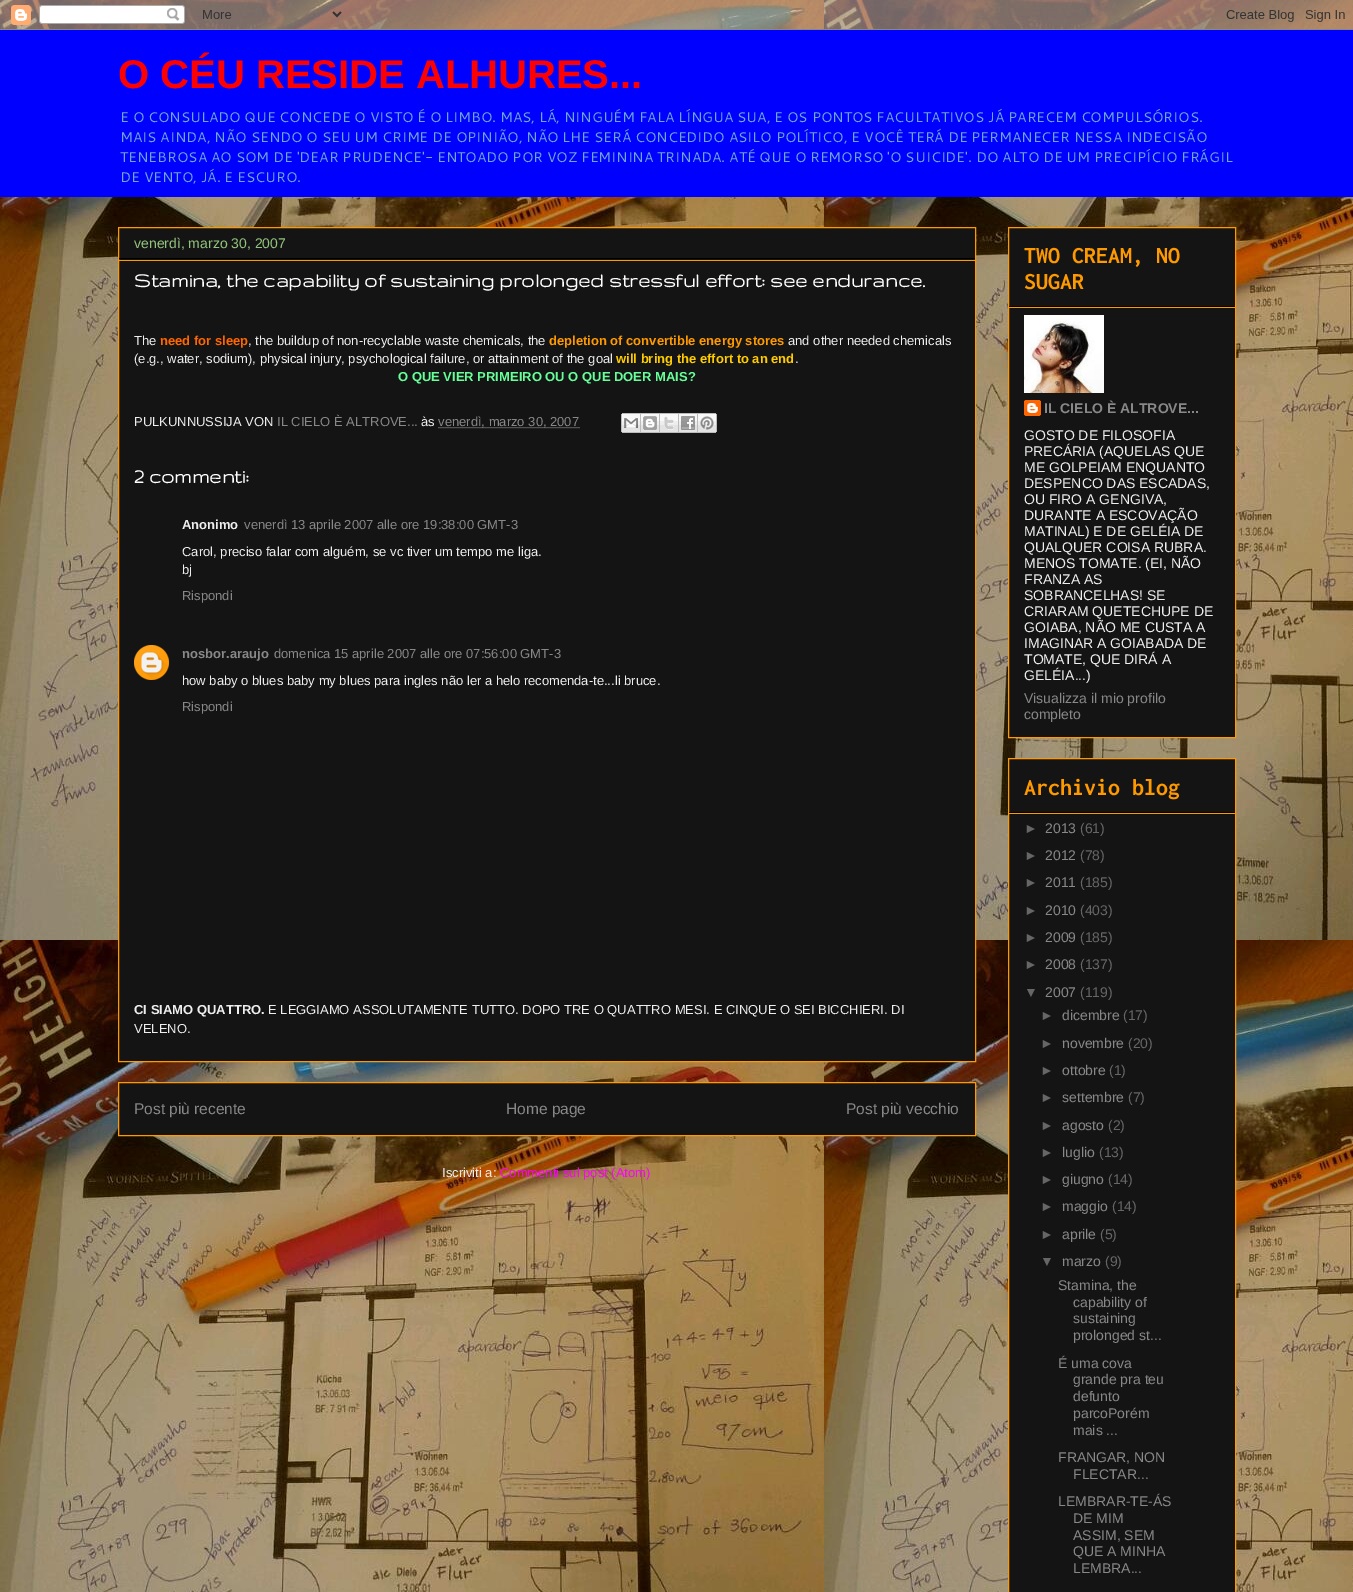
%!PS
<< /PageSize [1353 1592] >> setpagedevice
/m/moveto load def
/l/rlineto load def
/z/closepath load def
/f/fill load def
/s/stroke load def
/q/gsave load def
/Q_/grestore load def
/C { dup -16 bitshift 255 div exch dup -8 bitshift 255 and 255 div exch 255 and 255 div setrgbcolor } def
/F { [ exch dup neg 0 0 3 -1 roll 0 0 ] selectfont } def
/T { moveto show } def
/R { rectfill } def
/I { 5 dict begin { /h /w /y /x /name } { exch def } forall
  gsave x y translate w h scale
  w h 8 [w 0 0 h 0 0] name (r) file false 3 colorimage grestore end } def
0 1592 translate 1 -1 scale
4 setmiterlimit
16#FFFFFF C
0 0 1353 1592 R
(1.rgb) 0 0 1353 1592 I
(2.rgb) 0 0 1353 30 I
16#0000FF C
0 30 1353 167 R
/LiberationSans-Bold 40 F
16#FF0000 C
(O CÉU RESIDE ALHURES...) 118 88 T
/Cantarell-Regular 14 F
16#6FA8DC C
(E O CONSULADO QUE CONCEDE O VISTO É O LIMBO. MAS, LÁ, NINGUÉM FALA LÍNGUA SUA, E OS PONTOS FACULTATIVOS JÁ PARECEM COMPULSÓRIOS.) 120 122 T
(MAIS AINDA, NÃO SENDO O SEU UM CRIME DE OPINIÃO, NÃO LHE SERÁ CONCEDIDO ASILO POLÍTICO, E VOCÊ TERÁ DE PERMANECER NESSA INDECISÃO) 120 142 T
(TENEBROSA AO SOM DE 'DEAR PRUDENCE'- ENTOADO POR VOZ FEMININA TRINADA. ATÉ QUE O REMORSO 'O SUICIDE'. DO ALTO DE UM PRECIPÍCIO FRÁGIL) 120 162 T
(DE VENTO, JÁ. E ESCURO.) 120 182 T
16#141414 C
118.5 227.5 m 857 0 l 0 834 l -857 0 l z q f Q_
16#FF9900 C
s
16#000000 C
119 258 856 1 R
/LiberationSans-Regular 14 F
16#93C47D C
(venerdì, marzo 30, 2007) 134 248 T
16#FF9900 C
119 260 856 1 R
/Gruppo-Bold 22 F
16#FFFFFF C
(Stamina, the capability of sustaining prolonged stressful effort: see endurance.) 134 287 T
/LiberationSans-Regular 13 F
16#EEEEEE C
(The) 134 345 T
/LiberationSans-Bold 13 F
16#FF6600 C
(need for sleep) 160 345 T
/LiberationSans-Regular 13 F
16#EEEEEE C
(, the buildup of non-recyclable waste chemicals, the) 248 345 T
/LiberationSans-Bold 13 F
16#FF9900 C
(depletion of convertible energy stores) 549 345 T
/LiberationSans-Regular 13 F
16#EEEEEE C
(and other needed chemicals) 788 345 T
(\(e.g., water, sodium\), physical injury, psychological failure, or attainment of the goal) 134 363 T
/LiberationSans-Bold 13 F
16#FFCC00 C
(will bring the effort to an end) 616 363 T
/LiberationSans-Regular 13 F
16#EEEEEE C
(.) 795 363 T
/LiberationSans-Bold 13 F
16#66FF99 C
(O QUE VIER PRIMEIRO OU O QUE DOER MAIS?) 398 381 T
/LiberationSans-Regular 13 F
16#EEEEEE C
(PULKUNNUSSIJA VON) 134 426 T
16#888888 C
(IL CIELO È ALTROVE...) 277 426 T
16#EEEEEE C
(às) 421 426 T
16#888888 C
[1 1] 0 setdash
438.5 427.5 m 141 0 l s
(venerdì, marzo 30, 2007) 438 426 T
(3.rgb) 621 413 20 20 I
(4.rgb) 641 413 19 20 I
(5.rgb) 660 413 19 20 I
(6.rgb) 679 413 19 20 I
(7.rgb) 698 413 19 20 I
/Gruppo-Bold 22 F
16#FFFFFF C
(2 commenti:) 134 483 T
/LiberationSans-Bold 13 F
16#EEEEEE C
(Anonimo) 182 529 T
/LiberationSans-Regular 13 F
16#888888 C
(venerdì 13 aprile 2007 alle ore 19:38:00 GMT-3) 244 529 T
16#EEEEEE C
(Carol, preciso falar com alguém, se vc tiver um tempo me liga.) 182 556 T
(bj) 182 574 T
16#888888 C
(Rispondi) 182 600 T
(8.rgb) 134 645 35 35 I
/LiberationSans-Bold 13 F
(nosbor.araujo) 182 658 T
/LiberationSans-Regular 13 F
(domenica 15 aprile 2007 alle ore 07:56:00 GMT-3) 274 658 T
16#EEEEEE C
(how baby o blues baby my blues para ingles não ler a helo recomenda-te...li bruce.) 182 685 T
16#888888 C
(Rispondi) 182 711 T
/LiberationSans-Bold 13 F
16#EEEEEE C
(CI SIAMO QUATTRO.) 134 1014 T
/LiberationSans-Regular 13 F
(E LEGGIAMO ASSOLUTAMENTE TUTTO. DOPO TRE O QUATTRO MESI. E CINQUE O SEI BICCHIERI. DI) 268 1014 T
(VELENO.) 134 1033 T
16#141414 C
118.5 1082.5 m 857 0 l 0 53 l -857 0 l z q f Q_
16#FF9900 C
[] 0 setdash
s
/LiberationSans-Regular 15.5 F
16#888888 C
(Post più recente) 134 1114 T
(Home page) 506 1114 T
(Post più vecchio) 846 1114 T
/LiberationSans-Regular 13 F
16#EEEEEE C
(Iscriviti a:) 442 1177 T
16#FF00FF C
(Commenti sul post \(Atom\)) 500 1177 T
16#141414 C
1008.5 227.5 m 227 0 l 0 510 l -227 0 l z q f Q_
16#FF9900 C
s
16#000000 C
1009 306 226 1 R
/Inconsolata-Bold 24 F
16#FF9900 C
(TWO CREAM, NO) 1024 263 T
(SUGAR) 1024 289 T
1009 307 226 1 R
(9.rgb) 1024 315 80 78 I
(10.rgb) 1024 400 17 16 I
/LiberationSans-Bold 14 F
16#888888 C
(IL CIELO È ALTROVE...) 1044 413 T
/LiberationSans-Regular 14 F
16#EEEEEE C
(GOSTO DE FILOSOFIA) 1024 440 T
(PRECÁRIA \(AQUELAS QUE) 1024 456 T
(ME GOLPEIAM ENQUANTO) 1024 472 T
(DESPENCO DAS ESCADAS,) 1024 488 T
(OU FIRO A GENGIVA,) 1024 504 T
(DURANTE A ESCOVAÇÃO) 1024 520 T
(MATINAL\) E DE GELÉIA DE) 1024 536 T
(QUALQUER COISA RUBRA.) 1024 552 T
(MENOS TOMATE. \(EI, NÃO) 1024 568 T
(FRANZA AS) 1024 584 T
(SOBRANCELHAS! SE) 1024 600 T
(CRIARAM QUETECHUPE DE) 1024 616 T
(GOIABA, NÃO ME CUSTA A) 1024 632 T
(IMAGINAR A GOIABADA DE) 1024 648 T
(TOMATE, QUE DIRÁ A) 1024 664 T
(GELÉIA...\)) 1024 680 T
16#888888 C
(Visualizza il mio profilo) 1024 703 T
(completo) 1024 719 T
16#141414 C
1008.5 758.5 m 227 0 l 0 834 l -227 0 l z q f Q_
16#FF9900 C
s
16#000000 C
1009 812 226 1 R
/Inconsolata-Bold 24 F
16#FF9900 C
(Archivio blog) 1024 795 T
1009 813 226 1 R
/LiberationSans-Regular 14 F
16#666666 C
(►) 1024 833 T
16#888888 C
(2013) 1045 833 T
16#666666 C
(\(61\)) 1080 833 T
(►) 1024 860 T
16#888888 C
(2012) 1045 860 T
16#666666 C
(\(78\)) 1080 860 T
(►) 1024 887 T
16#888888 C
(2011) 1045 887 T
16#666666 C
(\(185\)) 1080 887 T
(►) 1024 915 T
16#888888 C
(2010) 1045 915 T
16#666666 C
(\(403\)) 1080 915 T
(►) 1024 942 T
16#888888 C
(2009) 1045 942 T
16#666666 C
(\(185\)) 1080 942 T
(►) 1024 969 T
16#888888 C
(2008) 1045 969 T
16#666666 C
(\(137\)) 1080 969 T
(▼) 1024 997 T
16#888888 C
(2007) 1045 997 T
16#666666 C
(\(119\)) 1080 997 T
(►) 1040 1020 T
16#888888 C
(dicembre) 1062 1020 T
16#666666 C
(\(17\)) 1123 1020 T
(►) 1040 1048 T
16#888888 C
(novembre) 1062 1048 T
16#666666 C
(\(20\)) 1128 1048 T
(►) 1040 1075 T
16#888888 C
(ottobre) 1062 1075 T
16#666666 C
(\(1\)) 1109 1075 T
(►) 1040 1102 T
16#888888 C
(settembre) 1062 1102 T
16#666666 C
(\(7\)) 1128 1102 T
(►) 1040 1130 T
16#888888 C
(agosto) 1062 1130 T
16#666666 C
(\(2\)) 1108 1130 T
(►) 1040 1157 T
16#888888 C
(luglio) 1062 1157 T
16#666666 C
(\(13\)) 1099 1157 T
(►) 1040 1184 T
16#888888 C
(giugno) 1062 1184 T
16#666666 C
(\(14\)) 1108 1184 T
(►) 1040 1211 T
16#888888 C
(maggio) 1062 1211 T
16#666666 C
(\(14\)) 1112 1211 T
(►) 1040 1239 T
16#888888 C
(aprile) 1062 1239 T
16#666666 C
(\(5\)) 1100 1239 T
(▼) 1040 1266 T
16#888888 C
(marzo) 1062 1266 T
16#666666 C
(\(9\)) 1105 1266 T
16#888888 C
(Stamina, the) 1058 1290 T
(capability of) 1073 1307 T
(sustaining) 1073 1323 T
(prolonged st...) 1073 1340 T
(É uma cova) 1058 1368 T
(grande pra teu) 1073 1384 T
(defunto) 1073 1401 T
(parcoPorém) 1073 1418 T
(mais ...) 1073 1435 T
(FRANGAR, NON) 1058 1462 T
(FLECTAR...) 1073 1479 T
(LEMBRAR-TE-ÁS) 1058 1506 T
(DE MIM) 1073 1523 T
(ASSIM, SEM) 1073 1540 T
(QUE A MINHA) 1073 1556 T
(LEMBRA...) 1073 1573 T
showpage
